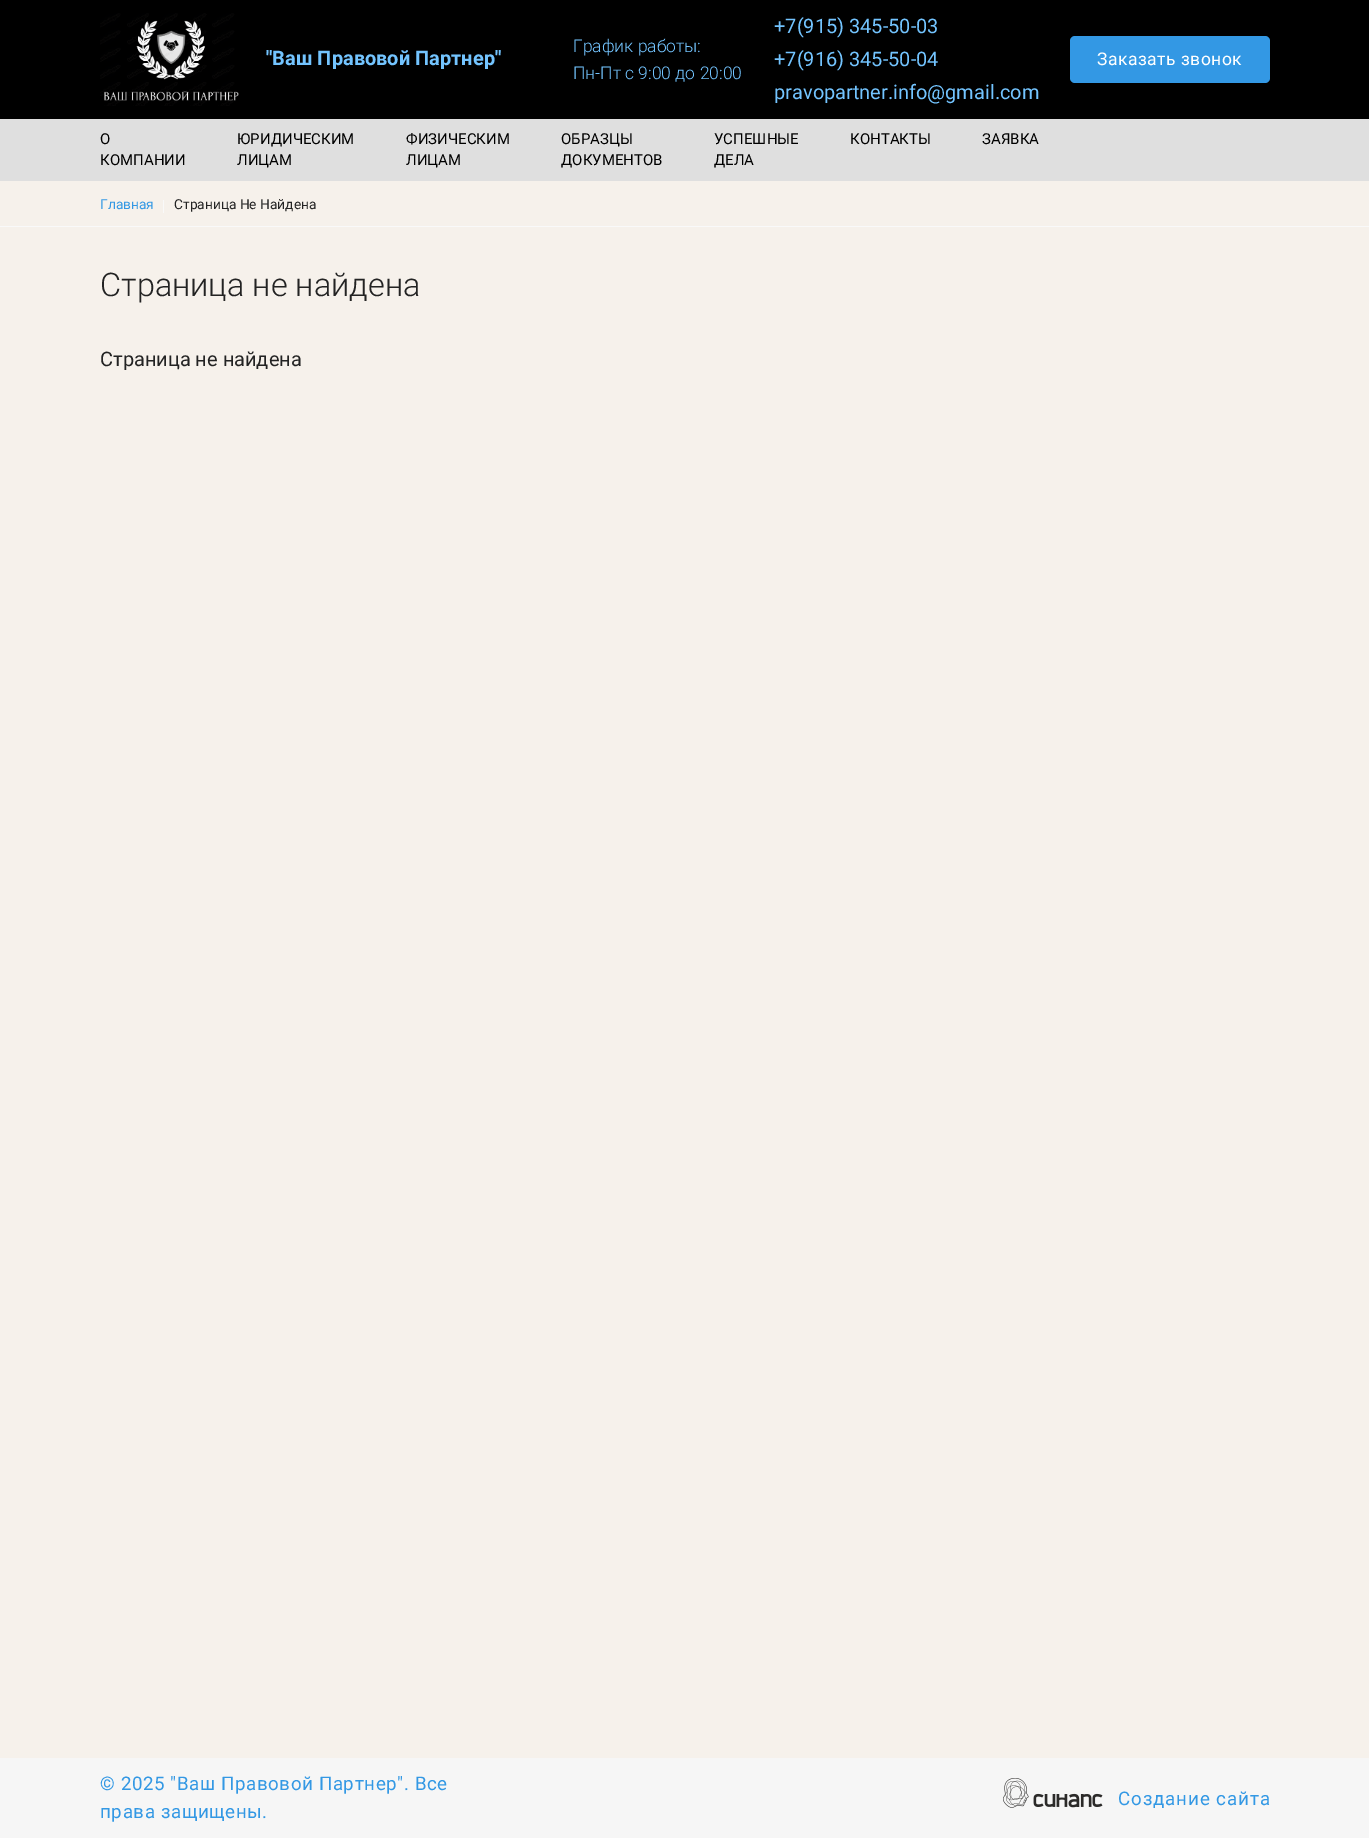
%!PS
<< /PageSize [1369 1838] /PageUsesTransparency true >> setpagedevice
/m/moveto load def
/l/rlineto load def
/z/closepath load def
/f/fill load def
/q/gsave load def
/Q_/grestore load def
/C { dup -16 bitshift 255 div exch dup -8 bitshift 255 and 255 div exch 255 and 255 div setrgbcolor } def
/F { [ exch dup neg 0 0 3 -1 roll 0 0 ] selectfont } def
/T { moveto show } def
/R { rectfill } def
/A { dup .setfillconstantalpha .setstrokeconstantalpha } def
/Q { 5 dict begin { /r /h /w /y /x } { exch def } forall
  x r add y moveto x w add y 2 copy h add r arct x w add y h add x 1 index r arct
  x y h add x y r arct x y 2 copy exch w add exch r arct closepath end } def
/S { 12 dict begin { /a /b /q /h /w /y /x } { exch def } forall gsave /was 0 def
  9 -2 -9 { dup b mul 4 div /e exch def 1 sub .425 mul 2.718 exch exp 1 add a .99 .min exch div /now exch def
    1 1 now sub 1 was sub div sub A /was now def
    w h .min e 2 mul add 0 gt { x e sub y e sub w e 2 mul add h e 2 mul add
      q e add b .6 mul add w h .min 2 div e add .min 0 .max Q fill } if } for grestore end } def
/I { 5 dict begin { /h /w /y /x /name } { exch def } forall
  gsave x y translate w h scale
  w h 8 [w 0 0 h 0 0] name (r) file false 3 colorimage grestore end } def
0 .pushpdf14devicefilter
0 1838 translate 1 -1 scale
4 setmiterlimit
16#F6F1EB C
0 0 1369 1838 R
16#000000 C
0 0 1369 119 R
q
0 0 m 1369 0 l 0 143 l -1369 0 l z 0 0 m 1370 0 l 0 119 l -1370 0 l z eoclip newpath
0 5 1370 119 0 6 .12 S
Q_
(1.rgb) 100 13 139 93 I
/Roboto-Bold 20 F
16#73C4FF C
("Ваш Правовой Партнер") 266 65 T
/Roboto-Light 17.5 F
(График работы:) 573 52 T
(Пн-Пт с 9:00 до 20:00) 573 79 T
/Roboto-Regular 20 F
(+7\(915\) 345-50-03) 774 33 T
(+7\(916\) 345-50-04) 774 66 T
(pravopartner.info@gmail.com) 774 99 T
16#3398E4 C
1070 36 200 47 5 Q f
/Roboto-Regular 17.5 F
16#FFFFFF C
1097 65 m .5 0 (Заказать звонок) ashow
16#DFDFDF C
0 119 1369 62 R
/Roboto-Regular 15 F
16#000000 C
(О) 100 144 T
(КОМПАНИИ) 100 165 T
(ЮРИДИЧЕСКИМ) 237 144 T
(ЛИЦАМ) 237 165 T
(ФИЗИЧЕСКИМ) 406 144 T
(ЛИЦАМ) 406 165 T
(ОБРАЗЦЫ) 561 144 T
(ДОКУМЕНТОВ) 561 165 T
(УСПЕШНЫЕ) 714 144 T
(ДЕЛА) 714 165 T
(КОНТАКТЫ) 850 144 T
(ЗАЯВКА) 982 144 T
16#F9F9F9 C
0 226 1369 1 R
/Roboto-Regular 13.75 F
16#3398E4 C
(Главная) 100 209 T
16#F9F9F9 C
163 200 1 13 R
16#232323 C
(Страница Не Найдена) 174 209 T
/Roboto-Light 32.5 F
(Страница не найдена) 100 296 T
/Roboto-Regular 20 F
(Страница не найдена) 100 366 T
16#F6F6F6 C
0 1758 1369 80 R
/Roboto-Regular 18.75 F
16#3398E4 C
100 1790 m .6 0 (© 2025 "Ваш Правовой Партнер". Все) ashow
100 1818 m .6 0 (права защищены.) ashow
(2.rgb) 1003 1778 100 30 I
1118 1805 m .9 0 (Создание сайта) ashow
.poppdf14devicefilter showpage
